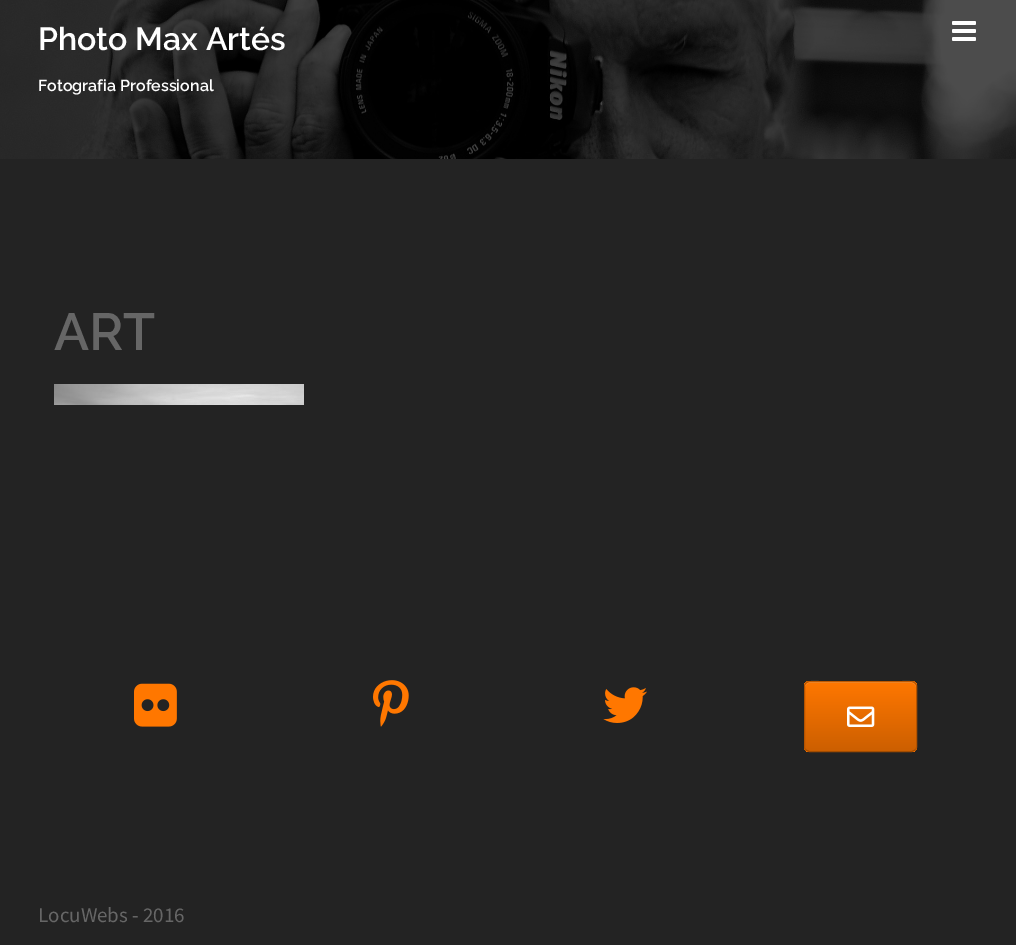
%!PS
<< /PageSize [1016 945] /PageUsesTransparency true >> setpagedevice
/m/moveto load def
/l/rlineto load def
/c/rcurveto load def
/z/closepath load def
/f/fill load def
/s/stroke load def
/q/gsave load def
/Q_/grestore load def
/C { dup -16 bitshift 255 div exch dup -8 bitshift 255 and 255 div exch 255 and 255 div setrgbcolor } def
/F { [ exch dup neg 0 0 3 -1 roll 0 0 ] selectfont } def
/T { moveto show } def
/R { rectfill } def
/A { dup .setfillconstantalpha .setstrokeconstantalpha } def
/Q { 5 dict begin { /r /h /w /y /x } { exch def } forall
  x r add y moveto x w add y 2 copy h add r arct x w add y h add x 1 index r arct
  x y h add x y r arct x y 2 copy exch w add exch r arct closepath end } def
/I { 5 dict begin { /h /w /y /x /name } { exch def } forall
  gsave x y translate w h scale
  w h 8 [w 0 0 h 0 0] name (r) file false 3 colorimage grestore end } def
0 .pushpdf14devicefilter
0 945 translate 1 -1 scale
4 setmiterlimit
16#232323 C
0 0 1016 945 R
(1.rgb) 0 0 1016 159 I
/Raleway-SemiBold 32 F
16#FFFFFF C
(Photo Max Artés) 38 50 T
/Raleway-SemiBold 16 F
(Fotografia Professional) 38 91 T
(2.rgb) 952 21 24 20 I
/Raleway-SemiBold 52 F
16#666666 C
(ART) 54 350 T
(3.rgb) 54 384 250 21 I
(4.rgb) 134 683 43 44 I
(5.rgb) 373 680 36 47 I
(6.rgb) 603 687 44 36 I
q
804 681 113 71 5 Q clip newpath
q 804 681 m 113 0 l 0 1 l -113 0 l z clip newpath
<< /ShadingType 2 /ColorSpace /DeviceRGB /Coords [805 682 805 613] /Extend [true true] /Function << /FunctionType 2 /Domain [0 1] /C0 [.8 .373 0] /C1 [1 .467 0] /N 1 >> >> shfill Q_
q 804 682 m 113 0 l 0 69 l -113 0 l z clip newpath
<< /ShadingType 2 /ColorSpace /DeviceRGB /Coords [805 751 805 682] /Extend [true true] /Function << /FunctionType 2 /Domain [0 1] /C0 [.8 .373 0] /C1 [1 .467 0] /N 1 >> >> shfill Q_
q 804 751 m 113 0 l 0 1 l -113 0 l z clip newpath
<< /ShadingType 2 /ColorSpace /DeviceRGB /Coords [805 820 805 751] /Extend [true true] /Function << /FunctionType 2 /Domain [0 1] /C0 [.8 .373 0] /C1 [1 .467 0] /N 1 >> >> shfill Q_
Q_
0.2 A
16#FFFFFF C
809 683 m 103 0 l 2 0 4 2 4 4 c 0 -10 -18 -5 -21 -5 c -69 0 l -3 0 -21 -5 -21 5 c 0 -2 2 -4 4 -4 c z f
1 A
16#BD5800 C
806 683 m 3 -1.5 l 103 0 l 3 1.5 l s
16#B35300 C
915 683 m 1 1 1.5 2 1.5 3 c 0 61 l 0 1 -.5 2 -1.5 3 c s
16#A34C00 C
915 750 m -3 1.5 l -103 0 l -3 -1.5 l s
16#B35300 C
806 750 m -1 -1 -1.5 -2 -1.5 -3 c 0 -61 l 0 -1 .5 -2 1.5 -3 c s
(7.rgb) 847 706 28 21 I
/SourceSansPro-Regular 21 F
16#666666 C
(LocuWebs - 2016) 38 922 T
.poppdf14devicefilter showpage
